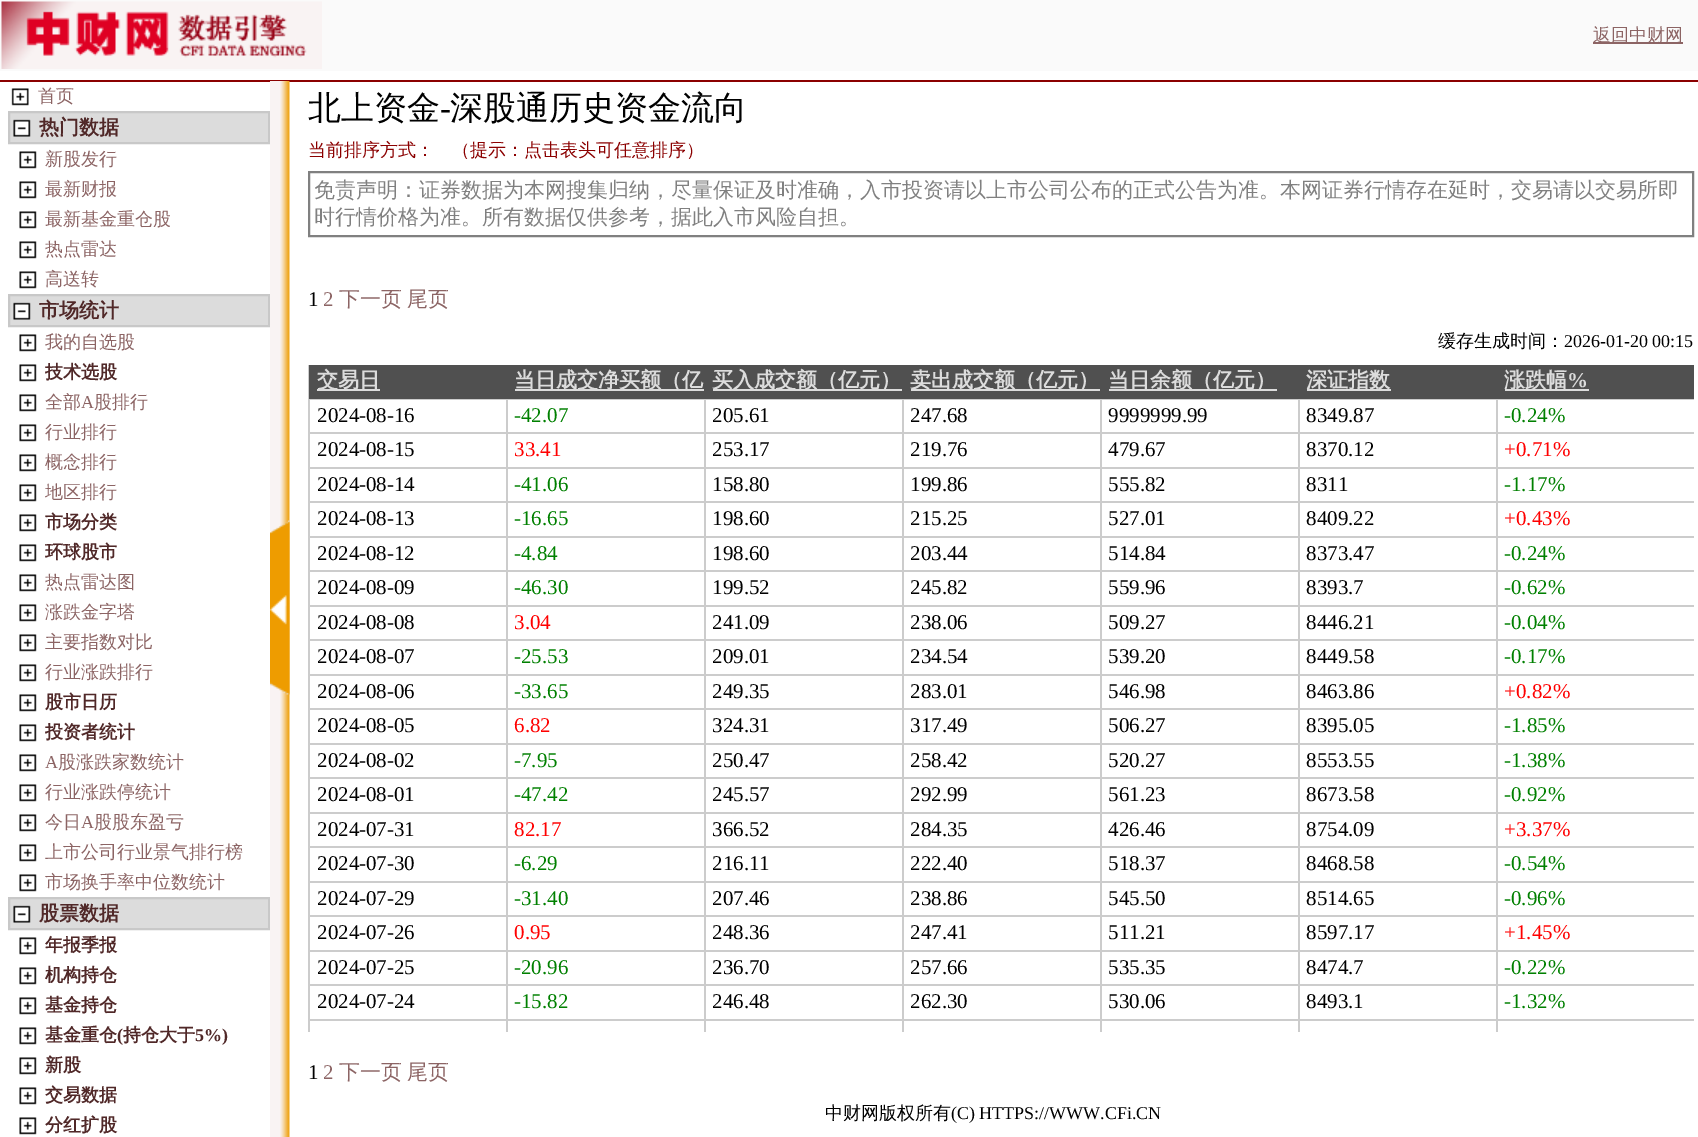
%!PS
<< /PageSize [1698 1137] >> setpagedevice
/w/setlinewidth load def
/C { dup -16 bitshift 255 div exch dup -8 bitshift 255 and 255 div exch 255 and 255 div setrgbcolor } def
/F { [ exch dup neg 0 0 3 -1 roll 0 0 ] selectfont } def
/T { moveto show } def
/R { rectfill } def
/I { 5 dict begin { /h /w /y /x /name } { exch def } forall
  gsave x y translate w h scale
  w h 8 [w 0 0 h 0 0] name (r) file false 3 colorimage grestore end } def
0 1137 translate 1 -1 scale
4 setmiterlimit
16#FFFFFF C
0 0 1698 1137 R
16#FAFAFA C
0 0 1698 71 R
(1.rgb) 1 1 321 68 I
16#8C6464 C
1593 42 90 2 R
/WenQuanYiZenHei-Medium 18 F
(返回中财网) 1593 41 T
16#8B0000 C
0 80 1698 2 R
(2.rgb) 11 88 18 18 I
16#8C6464 C
(首页) 38 102 T
16#DCDCDC C
10 113 258 29 R
(3.rgb) 13 119 18 18 I
16#C8C8C8 C
2 w
9 112 260 31 rectstroke
/WenQuanYiZenHei-Bold 20 F
16#502828 C
(热门数据) 39 134 T
(4.rgb) 19 151 18 18 I
/WenQuanYiZenHei-Medium 18 F
16#8C6464 C
(新股发行) 45 165 T
(4.rgb) 19 181 18 18 I
(最新财报) 45 195 T
(4.rgb) 19 211 18 18 I
(最新基金重仓股) 45 225 T
(4.rgb) 19 241 18 18 I
(热点雷达) 45 255 T
(4.rgb) 19 271 18 18 I
(高送转) 45 285 T
16#DCDCDC C
10 296 258 29 R
(3.rgb) 13 302 18 18 I
16#C8C8C8 C
9 295 260 31 rectstroke
/WenQuanYiZenHei-Bold 20 F
16#502828 C
(市场统计) 39 317 T
(4.rgb) 19 334 18 18 I
/WenQuanYiZenHei-Medium 18 F
16#8C6464 C
(我的自选股) 45 348 T
(4.rgb) 19 364 18 18 I
/WenQuanYiZenHei-Bold 18 F
16#502828 C
(技术选股) 45 378 T
(4.rgb) 19 394 18 18 I
/WenQuanYiZenHei-Medium 18 F
16#8C6464 C
(全部) 45 408 T
/LiberationSerif-Regular 18 F
(A) 81 408 T
/WenQuanYiZenHei-Medium 18 F
(股排行) 94 408 T
(4.rgb) 19 424 18 18 I
(行业排行) 45 438 T
(4.rgb) 19 454 18 18 I
(概念排行) 45 468 T
(4.rgb) 19 484 18 18 I
(地区排行) 45 498 T
(4.rgb) 19 514 18 18 I
/WenQuanYiZenHei-Bold 18 F
16#502828 C
(市场分类) 45 528 T
(4.rgb) 19 544 18 18 I
(环球股市) 45 558 T
(4.rgb) 19 574 18 18 I
/WenQuanYiZenHei-Medium 18 F
16#8C6464 C
(热点雷达图) 45 588 T
(4.rgb) 19 604 18 18 I
(涨跌金字塔) 45 618 T
(4.rgb) 19 634 18 18 I
(主要指数对比) 45 648 T
(4.rgb) 19 664 18 18 I
(行业涨跌排行) 45 678 T
(4.rgb) 19 694 18 18 I
/WenQuanYiZenHei-Bold 18 F
16#502828 C
(股市日历) 45 708 T
(4.rgb) 19 724 18 18 I
(投资者统计) 45 738 T
(4.rgb) 19 754 18 18 I
/LiberationSerif-Regular 18 F
16#8C6464 C
(A) 45 768 T
/WenQuanYiZenHei-Medium 18 F
(股涨跌家数统计) 58 768 T
(4.rgb) 19 784 18 18 I
(行业涨跌停统计) 45 798 T
(4.rgb) 19 814 18 18 I
(今日) 45 828 T
/LiberationSerif-Regular 18 F
(A) 81 828 T
/WenQuanYiZenHei-Medium 18 F
(股股东盈亏) 94 828 T
(4.rgb) 19 844 18 18 I
(上市公司行业景气排行榜) 45 858 T
(4.rgb) 19 874 18 18 I
(市场换手率中位数统计) 45 888 T
16#DCDCDC C
10 899 258 29 R
(3.rgb) 13 905 18 18 I
16#C8C8C8 C
9 898 260 31 rectstroke
/WenQuanYiZenHei-Bold 20 F
16#502828 C
(股票数据) 39 920 T
(4.rgb) 19 937 18 18 I
/WenQuanYiZenHei-Bold 18 F
(年报季报) 45 951 T
(4.rgb) 19 967 18 18 I
(机构持仓) 45 981 T
(4.rgb) 19 997 18 18 I
(基金持仓) 45 1011 T
(4.rgb) 19 1027 18 18 I
(基金重仓) 45 1041 T
/LiberationSerif-Bold 18 F
(\() 117 1041 T
/WenQuanYiZenHei-Bold 18 F
(持仓大于) 123 1041 T
/LiberationSerif-Bold 18 F
(5%\)) 195 1041 T
(4.rgb) 19 1057 18 18 I
/WenQuanYiZenHei-Bold 18 F
(新股) 45 1071 T
(4.rgb) 19 1087 18 18 I
(交易数据) 45 1101 T
(4.rgb) 19 1117 18 18 I
(分红扩股) 45 1131 T
(5.rgb) 270 81 20 1056 I
(6.rgb) 270 520 20 175 I
/WenQuanYiZenHei-Medium 33 F
16#000000 C
(北上资金) 308 119 T
/LiberationSerif-Regular 33 F
(-) 440 119 T
/WenQuanYiZenHei-Medium 33 F
(深股通历史资金流向) 450 119 T
/WenQuanYiZenHei-Medium 18 F
16#8B0000 C
(当前排序方式：　（提示：点击表头可任意排序）) 308 156 T
16#808080 C
309 172 1384 64 rectstroke
/WenQuanYiZenHei-Medium 21 F
(免责声明：证券数据为本网搜集归纳，尽量保证及时准确，入市投资请以上市公司公布的正式公告为准。本网证券行情存在延时，交易请以交易所即) 314 197 T
(时行情价格为准。所有数据仅供参考，据此入市风险自担。) 314 224 T
/LiberationSerif-Regular 21 F
16#000000 C
(1) 308 306 T
16#8C6464 C
(2) 323 306 T
/WenQuanYiZenHei-Medium 21 F
(下一页) 339 306 T
(尾页) 407 306 T
/WenQuanYiZenHei-Medium 18 F
16#000000 C
(缓存生成时间：) 1438 347 T
/LiberationSerif-Regular 18 F
(2026-01-20 00:15) 1564 347 T
16#CCCCCC C
1496 1019 2 13 R
1496 1019 198 2 R
1496 984 2 36 R
1496 984 198 2 R
1496 950 2 36 R
1496 950 198 2 R
1496 915 2 36 R
1496 915 198 2 R
1496 881 2 36 R
1496 881 198 2 R
1496 846 2 36 R
1496 846 198 2 R
1496 812 2 36 R
1496 812 198 2 R
1496 777 2 36 R
1496 777 198 2 R
1496 743 2 36 R
1496 743 198 2 R
1496 708 2 36 R
1496 708 198 2 R
1496 674 2 36 R
1496 674 198 2 R
1496 639 2 36 R
1496 639 198 2 R
1496 605 2 36 R
1496 605 198 2 R
1496 570 2 36 R
1496 570 198 2 R
1496 536 2 36 R
1496 536 198 2 R
1496 501 2 36 R
1496 501 198 2 R
1496 467 2 36 R
1496 467 198 2 R
1496 432 2 36 R
1496 432 198 2 R
1496 398 2 36 R
1298 1019 2 13 R
1298 1019 199 2 R
1298 984 2 36 R
1298 984 199 2 R
1298 950 2 36 R
1298 950 199 2 R
1298 915 2 36 R
1298 915 199 2 R
1298 881 2 36 R
1298 881 199 2 R
1298 846 2 36 R
1298 846 199 2 R
1298 812 2 36 R
1298 812 199 2 R
1298 777 2 36 R
1298 777 199 2 R
1298 743 2 36 R
1298 743 199 2 R
1298 708 2 36 R
1298 708 199 2 R
1298 674 2 36 R
1298 674 199 2 R
1298 639 2 36 R
1298 639 199 2 R
1298 605 2 36 R
1298 605 199 2 R
1298 570 2 36 R
1298 570 199 2 R
1298 536 2 36 R
1298 536 199 2 R
1298 501 2 36 R
1298 501 199 2 R
1298 467 2 36 R
1298 467 199 2 R
1298 432 2 36 R
1298 432 199 2 R
1298 398 2 36 R
1100 1019 2 13 R
1100 1019 199 2 R
1100 984 2 36 R
1100 984 199 2 R
1100 950 2 36 R
1100 950 199 2 R
1100 915 2 36 R
1100 915 199 2 R
1100 881 2 36 R
1100 881 199 2 R
1100 846 2 36 R
1100 846 199 2 R
1100 812 2 36 R
1100 812 199 2 R
1100 777 2 36 R
1100 777 199 2 R
1100 743 2 36 R
1100 743 199 2 R
1100 708 2 36 R
1100 708 199 2 R
1100 674 2 36 R
1100 674 199 2 R
1100 639 2 36 R
1100 639 199 2 R
1100 605 2 36 R
1100 605 199 2 R
1100 570 2 36 R
1100 570 199 2 R
1100 536 2 36 R
1100 536 199 2 R
1100 501 2 36 R
1100 501 199 2 R
1100 467 2 36 R
1100 467 199 2 R
1100 432 2 36 R
1100 432 199 2 R
1100 398 2 36 R
902 1019 2 13 R
902 1019 199 2 R
902 984 2 36 R
902 984 199 2 R
902 950 2 36 R
902 950 199 2 R
902 915 2 36 R
902 915 199 2 R
902 881 2 36 R
902 881 199 2 R
902 846 2 36 R
902 846 199 2 R
902 812 2 36 R
902 812 199 2 R
902 777 2 36 R
902 777 199 2 R
902 743 2 36 R
902 743 199 2 R
902 708 2 36 R
902 708 199 2 R
902 674 2 36 R
902 674 199 2 R
902 639 2 36 R
902 639 199 2 R
902 605 2 36 R
902 605 199 2 R
902 570 2 36 R
902 570 199 2 R
902 536 2 36 R
902 536 199 2 R
902 501 2 36 R
902 501 199 2 R
902 467 2 36 R
902 467 199 2 R
902 432 2 36 R
902 432 199 2 R
902 398 2 36 R
704 1019 2 13 R
704 1019 199 2 R
704 984 2 36 R
704 984 199 2 R
704 950 2 36 R
704 950 199 2 R
704 915 2 36 R
704 915 199 2 R
704 881 2 36 R
704 881 199 2 R
704 846 2 36 R
704 846 199 2 R
704 812 2 36 R
704 812 199 2 R
704 777 2 36 R
704 777 199 2 R
704 743 2 36 R
704 743 199 2 R
704 708 2 36 R
704 708 199 2 R
704 674 2 36 R
704 674 199 2 R
704 639 2 36 R
704 639 199 2 R
704 605 2 36 R
704 605 199 2 R
704 570 2 36 R
704 570 199 2 R
704 536 2 36 R
704 536 199 2 R
704 501 2 36 R
704 501 199 2 R
704 467 2 36 R
704 467 199 2 R
704 432 2 36 R
704 432 199 2 R
704 398 2 36 R
506 1019 2 13 R
506 1019 199 2 R
506 984 2 36 R
506 984 199 2 R
506 950 2 36 R
506 950 199 2 R
506 915 2 36 R
506 915 199 2 R
506 881 2 36 R
506 881 199 2 R
506 846 2 36 R
506 846 199 2 R
506 812 2 36 R
506 812 199 2 R
506 777 2 36 R
506 777 199 2 R
506 743 2 36 R
506 743 199 2 R
506 708 2 36 R
506 708 199 2 R
506 674 2 36 R
506 674 199 2 R
506 639 2 36 R
506 639 199 2 R
506 605 2 36 R
506 605 199 2 R
506 570 2 36 R
506 570 199 2 R
506 536 2 36 R
506 536 199 2 R
506 501 2 36 R
506 501 199 2 R
506 467 2 36 R
506 467 199 2 R
506 432 2 36 R
506 432 199 2 R
506 398 2 36 R
308 1019 2 13 R
308 1019 199 2 R
308 984 2 36 R
308 984 199 2 R
308 950 2 36 R
308 950 199 2 R
308 915 2 36 R
308 915 199 2 R
308 881 2 36 R
308 881 199 2 R
308 846 2 36 R
308 846 199 2 R
308 812 2 36 R
308 812 199 2 R
308 777 2 36 R
308 777 199 2 R
308 743 2 36 R
308 743 199 2 R
308 708 2 36 R
308 708 199 2 R
308 674 2 36 R
308 674 199 2 R
308 639 2 36 R
308 639 199 2 R
308 605 2 36 R
308 605 199 2 R
308 570 2 36 R
308 570 199 2 R
308 536 2 36 R
308 536 199 2 R
308 501 2 36 R
308 501 199 2 R
308 467 2 36 R
308 467 199 2 R
308 432 2 36 R
308 432 199 2 R
308 398 2 36 R
308 365 1 34 R
16#505050 C
309 365 1385 34 R
16#DCDCDC C
317 389 63 2 R
/WenQuanYiZenHei-Bold 21 F
(交易日) 317 387 T
515 389 189 2 R
(当日成交净买额（亿) 514 387 T
713 389 189 2 R
(买入成交额（亿元）) 712 387 T
911 389 189 2 R
(卖出成交额（亿元）) 910 387 T
1109 389 168 2 R
(当日余额（亿元）) 1108 387 T
1307 389 84 2 R
(深证指数) 1306 387 T
16#CCCCCC C
308 399 1386 1 R
16#DCDCDC C
1505 389 84 2 R
(涨跌幅) 1504 387 T
/LiberationSerif-Bold 21 F
(%) 1567 387 T
/LiberationSerif-Regular 21 F
16#000000 C
(2024-08-16) 317 422 T
16#008000 C
(-42.07) 514 422 T
16#000000 C
(205.61) 712 422 T
(247.68) 910 422 T
(9999999.99) 1108 422 T
(8349.87) 1306 422 T
16#008000 C
(-0.24%) 1504 422 T
16#000000 C
(2024-08-15) 317 456 T
16#FF0000 C
(33.41) 514 456 T
16#000000 C
(253.17) 712 456 T
(219.76) 910 456 T
(479.67) 1108 456 T
(8370.12) 1306 456 T
16#FF0000 C
(+0.71%) 1504 456 T
16#000000 C
(2024-08-14) 317 491 T
16#008000 C
(-41.06) 514 491 T
16#000000 C
(158.80) 712 491 T
(199.86) 910 491 T
(555.82) 1108 491 T
(8311) 1306 491 T
16#008000 C
(-1.17%) 1504 491 T
16#000000 C
(2024-08-13) 317 525 T
16#008000 C
(-16.65) 514 525 T
16#000000 C
(198.60) 712 525 T
(215.25) 910 525 T
(527.01) 1108 525 T
(8409.22) 1306 525 T
16#FF0000 C
(+0.43%) 1504 525 T
16#000000 C
(2024-08-12) 317 560 T
16#008000 C
(-4.84) 514 560 T
16#000000 C
(198.60) 712 560 T
(203.44) 910 560 T
(514.84) 1108 560 T
(8373.47) 1306 560 T
16#008000 C
(-0.24%) 1504 560 T
16#000000 C
(2024-08-09) 317 594 T
16#008000 C
(-46.30) 514 594 T
16#000000 C
(199.52) 712 594 T
(245.82) 910 594 T
(559.96) 1108 594 T
(8393.7) 1306 594 T
16#008000 C
(-0.62%) 1504 594 T
16#000000 C
(2024-08-08) 317 629 T
16#FF0000 C
(3.04) 514 629 T
16#000000 C
(241.09) 712 629 T
(238.06) 910 629 T
(509.27) 1108 629 T
(8446.21) 1306 629 T
16#008000 C
(-0.04%) 1504 629 T
16#000000 C
(2024-08-07) 317 663 T
16#008000 C
(-25.53) 514 663 T
16#000000 C
(209.01) 712 663 T
(234.54) 910 663 T
(539.20) 1108 663 T
(8449.58) 1306 663 T
16#008000 C
(-0.17%) 1504 663 T
16#000000 C
(2024-08-06) 317 698 T
16#008000 C
(-33.65) 514 698 T
16#000000 C
(249.35) 712 698 T
(283.01) 910 698 T
(546.98) 1108 698 T
(8463.86) 1306 698 T
16#FF0000 C
(+0.82%) 1504 698 T
16#000000 C
(2024-08-05) 317 732 T
16#FF0000 C
(6.82) 514 732 T
16#000000 C
(324.31) 712 732 T
(317.49) 910 732 T
(506.27) 1108 732 T
(8395.05) 1306 732 T
16#008000 C
(-1.85%) 1504 732 T
16#000000 C
(2024-08-02) 317 767 T
16#008000 C
(-7.95) 514 767 T
16#000000 C
(250.47) 712 767 T
(258.42) 910 767 T
(520.27) 1108 767 T
(8553.55) 1306 767 T
16#008000 C
(-1.38%) 1504 767 T
16#000000 C
(2024-08-01) 317 801 T
16#008000 C
(-47.42) 514 801 T
16#000000 C
(245.57) 712 801 T
(292.99) 910 801 T
(561.23) 1108 801 T
(8673.58) 1306 801 T
16#008000 C
(-0.92%) 1504 801 T
16#000000 C
(2024-07-31) 317 836 T
16#FF0000 C
(82.17) 514 836 T
16#000000 C
(366.52) 712 836 T
(284.35) 910 836 T
(426.46) 1108 836 T
(8754.09) 1306 836 T
16#FF0000 C
(+3.37%) 1504 836 T
16#000000 C
(2024-07-30) 317 870 T
16#008000 C
(-6.29) 514 870 T
16#000000 C
(216.11) 712 870 T
(222.40) 910 870 T
(518.37) 1108 870 T
(8468.58) 1306 870 T
16#008000 C
(-0.54%) 1504 870 T
16#000000 C
(2024-07-29) 317 905 T
16#008000 C
(-31.40) 514 905 T
16#000000 C
(207.46) 712 905 T
(238.86) 910 905 T
(545.50) 1108 905 T
(8514.65) 1306 905 T
16#008000 C
(-0.96%) 1504 905 T
16#000000 C
(2024-07-26) 317 939 T
16#FF0000 C
(0.95) 514 939 T
16#000000 C
(248.36) 712 939 T
(247.41) 910 939 T
(511.21) 1108 939 T
(8597.17) 1306 939 T
16#FF0000 C
(+1.45%) 1504 939 T
16#000000 C
(2024-07-25) 317 974 T
16#008000 C
(-20.96) 514 974 T
16#000000 C
(236.70) 712 974 T
(257.66) 910 974 T
(535.35) 1108 974 T
(8474.7) 1306 974 T
16#008000 C
(-0.22%) 1504 974 T
16#000000 C
(2024-07-24) 317 1008 T
16#008000 C
(-15.82) 514 1008 T
16#000000 C
(246.48) 712 1008 T
(262.30) 910 1008 T
(530.06) 1108 1008 T
(8493.1) 1306 1008 T
16#008000 C
(-1.32%) 1504 1008 T
16#000000 C
(1) 308 1079 T
16#8C6464 C
(2) 323 1079 T
/WenQuanYiZenHei-Medium 21 F
(下一页) 339 1079 T
(尾页) 407 1079 T
/WenQuanYiZenHei-Medium 18 F
16#000000 C
(中财网版权所有) 825 1119 T
/LiberationSerif-Regular 18 F
(\(C\) HTTPS://WWW.CFi.CN) 951 1119 T
showpage
